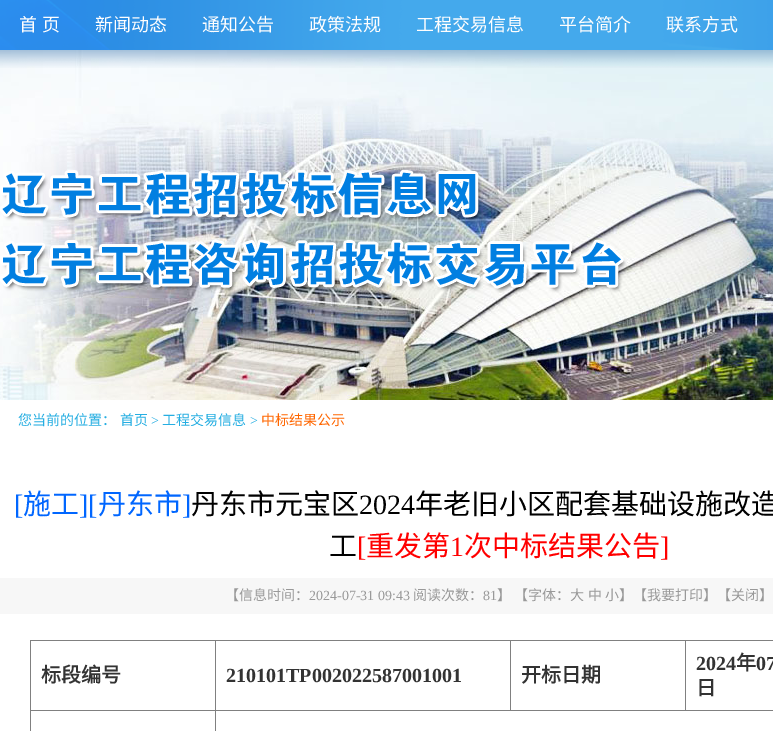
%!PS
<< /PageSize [773 731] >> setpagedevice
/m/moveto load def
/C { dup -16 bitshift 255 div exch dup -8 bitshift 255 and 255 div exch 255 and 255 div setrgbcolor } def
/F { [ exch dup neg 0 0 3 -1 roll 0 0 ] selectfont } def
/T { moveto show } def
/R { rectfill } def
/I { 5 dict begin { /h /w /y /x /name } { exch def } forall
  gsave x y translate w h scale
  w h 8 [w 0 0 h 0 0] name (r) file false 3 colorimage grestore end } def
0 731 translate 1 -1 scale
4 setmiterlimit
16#FFFFFF C
0 0 773 731 R
(1.rgb) 0 50 773 350 I
(2.rgb) 0 0 773 68 I
/NotoSansCJKSC-Regular 18 F
16#FFFEFE C
19 31 m 1 0 32 (首 页) widthshow
(新闻动态) 95 31 T
(通知公告) 202 31 T
(政策法规) 309 31 T
(工程交易信息) 416 31 T
(平台简介) 559 31 T
(联系方式) 666 31 T
(3.rgb) 0 170 627 123 I
/NotoSansCJKSC-Regular 14 F
16#25AEE2 C
(您当前的位置：) 18 425 T
(首页) 120 425 T
/LiberationSerif-Regular 14 F
(>) 151 425 T
/NotoSansCJKSC-Regular 14 F
(工程交易信息) 162 425 T
/LiberationSerif-Regular 14 F
(>) 250 425 T
/NotoSansCJKSC-Regular 14 F
16#FF6600 C
(中标结果公示) 261 425 T
/LiberationSerif-Regular 28 F
16#0066FF C
([) 14 514 T
/NotoSansCJKSC-Regular 28 F
(施工) 23 514 T
/LiberationSerif-Regular 28 F
(][) 79 514 T
/NotoSansCJKSC-Regular 28 F
(丹东市) 98 514 T
/LiberationSerif-Regular 28 F
(]) 182 514 T
/NotoSansCJKSC-Regular 28 F
16#000000 C
(丹东市元宝区) 191 514 T
/LiberationSerif-Regular 28 F
(2024) 359 514 T
/NotoSansCJKSC-Regular 28 F
(年老旧小区配套基础设施改造) 415 514 T
(工) 329 556 T
/LiberationSerif-Regular 28 F
16#FF0000 C
([) 357 556 T
/NotoSansCJKSC-Regular 28 F
(重发第) 366 556 T
/LiberationSerif-Regular 28 F
(1) 450 556 T
/NotoSansCJKSC-Regular 28 F
(次中标结果公告) 464 556 T
/LiberationSerif-Regular 28 F
(]) 660 556 T
16#F7F7F7 C
0 578 773 36 R
/NotoSansCJKSC-Regular 14 F
16#999999 C
(【信息时间：) 225 600 T
/LiberationSerif-Regular 14 F
(2024-07-31 09:43) 309 600 T
/NotoSansCJKSC-Regular 14 F
(阅读次数：) 413 600 T
/LiberationSerif-Regular 14 F
(81) 483 600 T
/NotoSansCJKSC-Regular 14 F
(】) 497 600 T
(【字体：大) 514 600 T
(中) 588 600 T
(小】【我要打印】【关闭】) 605 600 T
16#808080 C
30 640 743 1 R
30 640 1 91 R
/NotoSansCJKSC-Bold 20 F
16#333333 C
(标段编号) 41 682 T
16#808080 C
215 710 558 1 R
215 710 1 21 R
30 710 186 1 R
215 640 1 71 R
/LiberationSerif-Bold 20 F
16#333333 C
(210101TP002022587001001) 226 682 T
16#808080 C
510 640 1 71 R
/NotoSansCJKSC-Bold 20 F
16#333333 C
(开标日期) 521 682 T
16#808080 C
685 640 1 71 R
/LiberationSerif-Bold 20 F
16#333333 C
(2024) 696 670 T
/NotoSansCJKSC-Bold 20 F
(年) 736 670 T
/LiberationSerif-Bold 20 F
(07) 756 670 T
/NotoSansCJKSC-Bold 20 F
(日) 696 695 T
showpage
